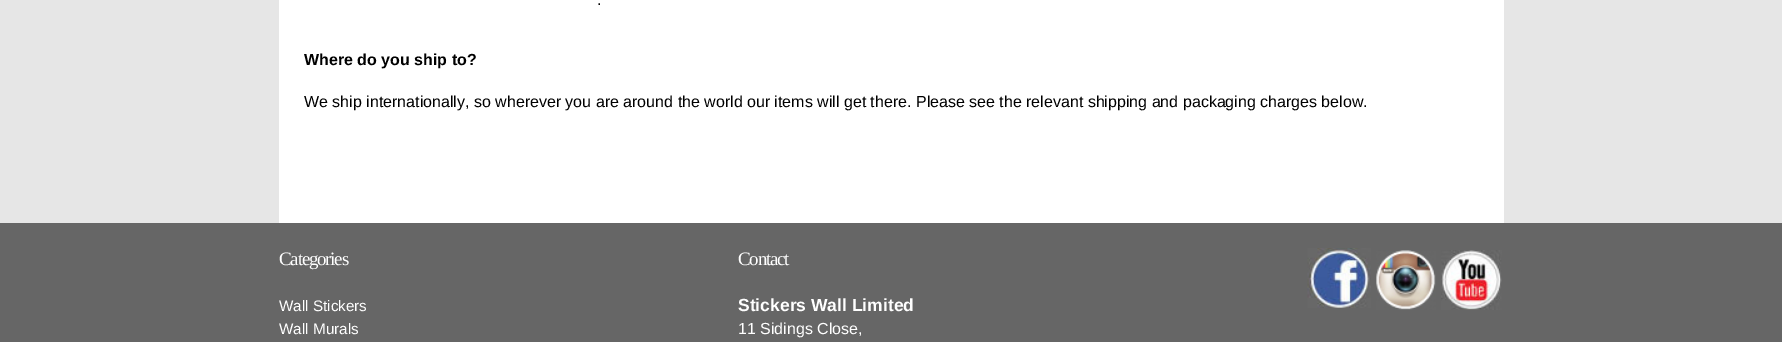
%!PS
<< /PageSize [1782 342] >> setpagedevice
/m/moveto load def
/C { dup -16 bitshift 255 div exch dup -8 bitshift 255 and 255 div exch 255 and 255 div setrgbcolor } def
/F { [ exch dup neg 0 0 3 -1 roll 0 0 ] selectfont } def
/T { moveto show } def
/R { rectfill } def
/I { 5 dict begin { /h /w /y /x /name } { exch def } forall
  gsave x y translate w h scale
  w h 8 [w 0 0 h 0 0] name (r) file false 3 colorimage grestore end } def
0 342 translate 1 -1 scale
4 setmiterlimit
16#E6E6E6 C
0 0 1782 342 R
16#FFFFFF C
279 0 1225 223 R
/LiberationSans-Regular 16 F
16#000000 C
(.) 597 5 T
/LiberationSans-Bold 16 F
(Where do you ship to?) 304 65 T
/LiberationSans-Regular 16 F
(We ship internationally, so wherever you are around the world our items will get there. Please see the relevant shipping and packaging charges below.) 304 107 T
16#666666 C
0 223 1782 119 R
/LiberationSerif-Regular 19 F
16#FFFFFF C
279 265 m -1.25 0 (Categories) ashow
/LiberationSans-Regular 15.25 F
(Wall Stickers) 279 311 T
(Wall Murals) 279 334 T
/LiberationSerif-Regular 19 F
738 265 m -1.25 0 (Contact) ashow
/LiberationSans-Bold 17.5 F
(Stickers Wall Limited) 738 311 T
/LiberationSans-Regular 16 F
(11 Sidings Close,) 738 334 T
(1.rgb) 1307 248 64 60 I
(2.rgb) 1376 250 60 60 I
(3.rgb) 1441 250 61 60 I
showpage
